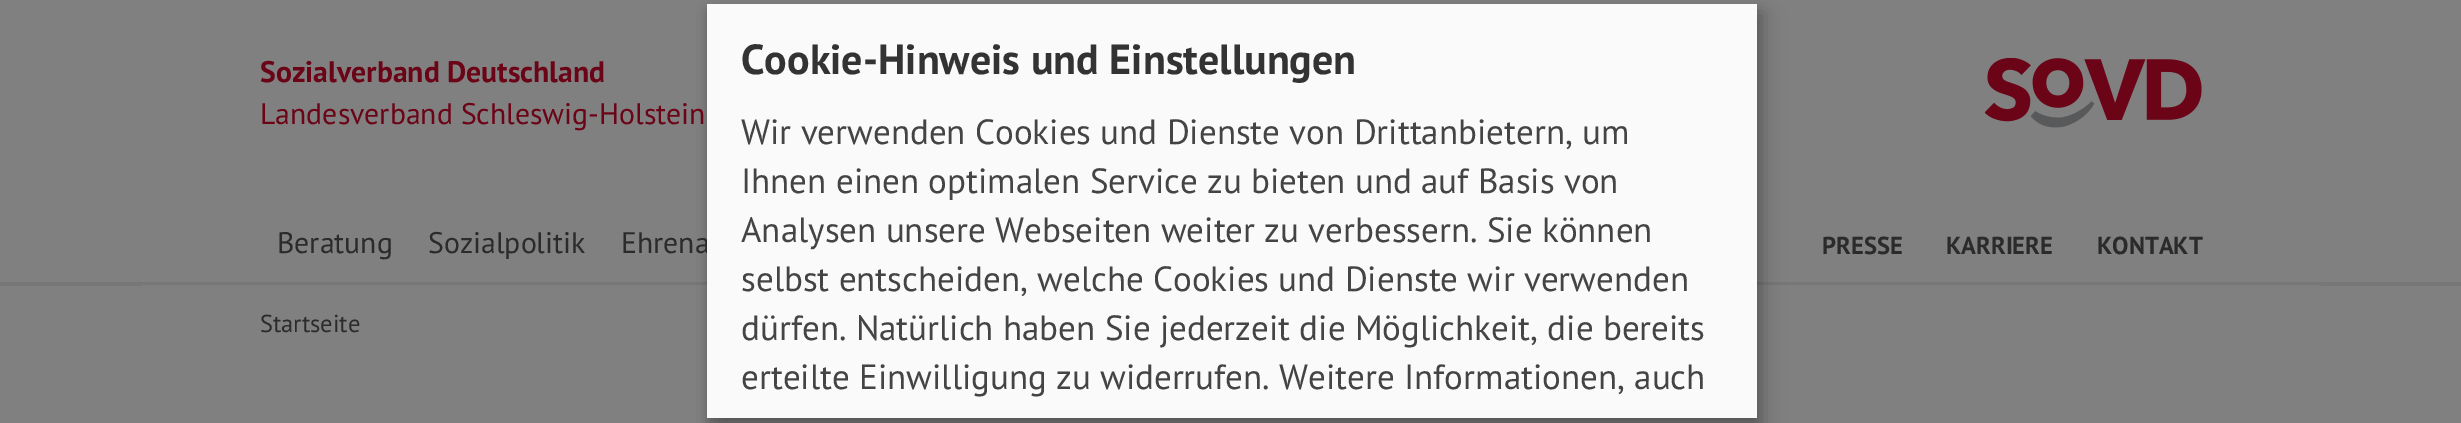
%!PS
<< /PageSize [2461 423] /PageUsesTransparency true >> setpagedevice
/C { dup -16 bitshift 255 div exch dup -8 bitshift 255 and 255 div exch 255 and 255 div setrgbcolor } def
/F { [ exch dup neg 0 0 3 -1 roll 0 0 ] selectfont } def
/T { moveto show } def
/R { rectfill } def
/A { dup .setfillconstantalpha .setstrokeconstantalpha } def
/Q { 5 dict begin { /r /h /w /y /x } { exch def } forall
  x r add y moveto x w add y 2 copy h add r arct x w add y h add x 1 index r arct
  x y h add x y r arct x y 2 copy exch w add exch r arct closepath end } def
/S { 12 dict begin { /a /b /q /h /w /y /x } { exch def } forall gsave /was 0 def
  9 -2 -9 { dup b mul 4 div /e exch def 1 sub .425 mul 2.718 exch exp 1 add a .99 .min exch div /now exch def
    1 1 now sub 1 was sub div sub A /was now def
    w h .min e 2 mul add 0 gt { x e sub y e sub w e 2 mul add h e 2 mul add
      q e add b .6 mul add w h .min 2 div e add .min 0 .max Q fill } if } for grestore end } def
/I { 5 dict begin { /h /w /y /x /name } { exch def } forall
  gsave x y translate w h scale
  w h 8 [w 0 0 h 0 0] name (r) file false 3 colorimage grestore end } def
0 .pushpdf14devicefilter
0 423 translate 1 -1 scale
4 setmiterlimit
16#808080 C
0 0 2461 423 R
16#777777 C
0 282 2461 4 R
16#808080 C
142 285 2179 1 R
16#000000 C
716 12 1050 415 0 9 .19 S
707 11 1050 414 0 5 .2 S
/PTSans-Regular 29.75 F
16#2B2B2B C
(Ehrena) 621 253 T
16#FAFAFA C
707 4 1050 414 R
/PTSans-Bold 42 F
16#333333 C
(Cookie-Hinweis und Einstellungen) 741 74 T
/PTSans-Regular 35 F
16#444444 C
(Wir verwenden Cookies und Dienste von Drittanbietern, um) 741 144 T
(Ihnen einen optimalen Service zu bieten und auf Basis von) 741 193 T
(Analysen unsere Webseiten weiter zu verbessern. Sie können) 741 242 T
(selbst entscheiden, welche Cookies und Dienste wir verwenden) 741 291 T
(dürfen. Natürlich haben Sie jederzeit die Möglichkeit, die bereits) 741 340 T
(erteilte Einwilligung zu widerrufen. Weitere Informationen, auch) 741 389 T
/PTSans-Bold 29.75 F
16#6B0417 C
(Sozialverband Deutschland) 260 82 T
/PTSans-Regular 29.75 F
(Landesverband Schleswig-Holstein) 260 124 T
(1.rgb) 1985 58 217 70 I
16#2B2B2B C
(Beratung) 277 253 T
(Sozialpolitik) 428 253 T
/PTSans-Bold 24.5 F
(PRESSE) 1822 254 T
(KARRIERE) 1946 254 T
(KONTAKT) 2097 254 T
/PTSans-Regular 24.5 F
(Startseite) 260 332 T
.poppdf14devicefilter showpage
